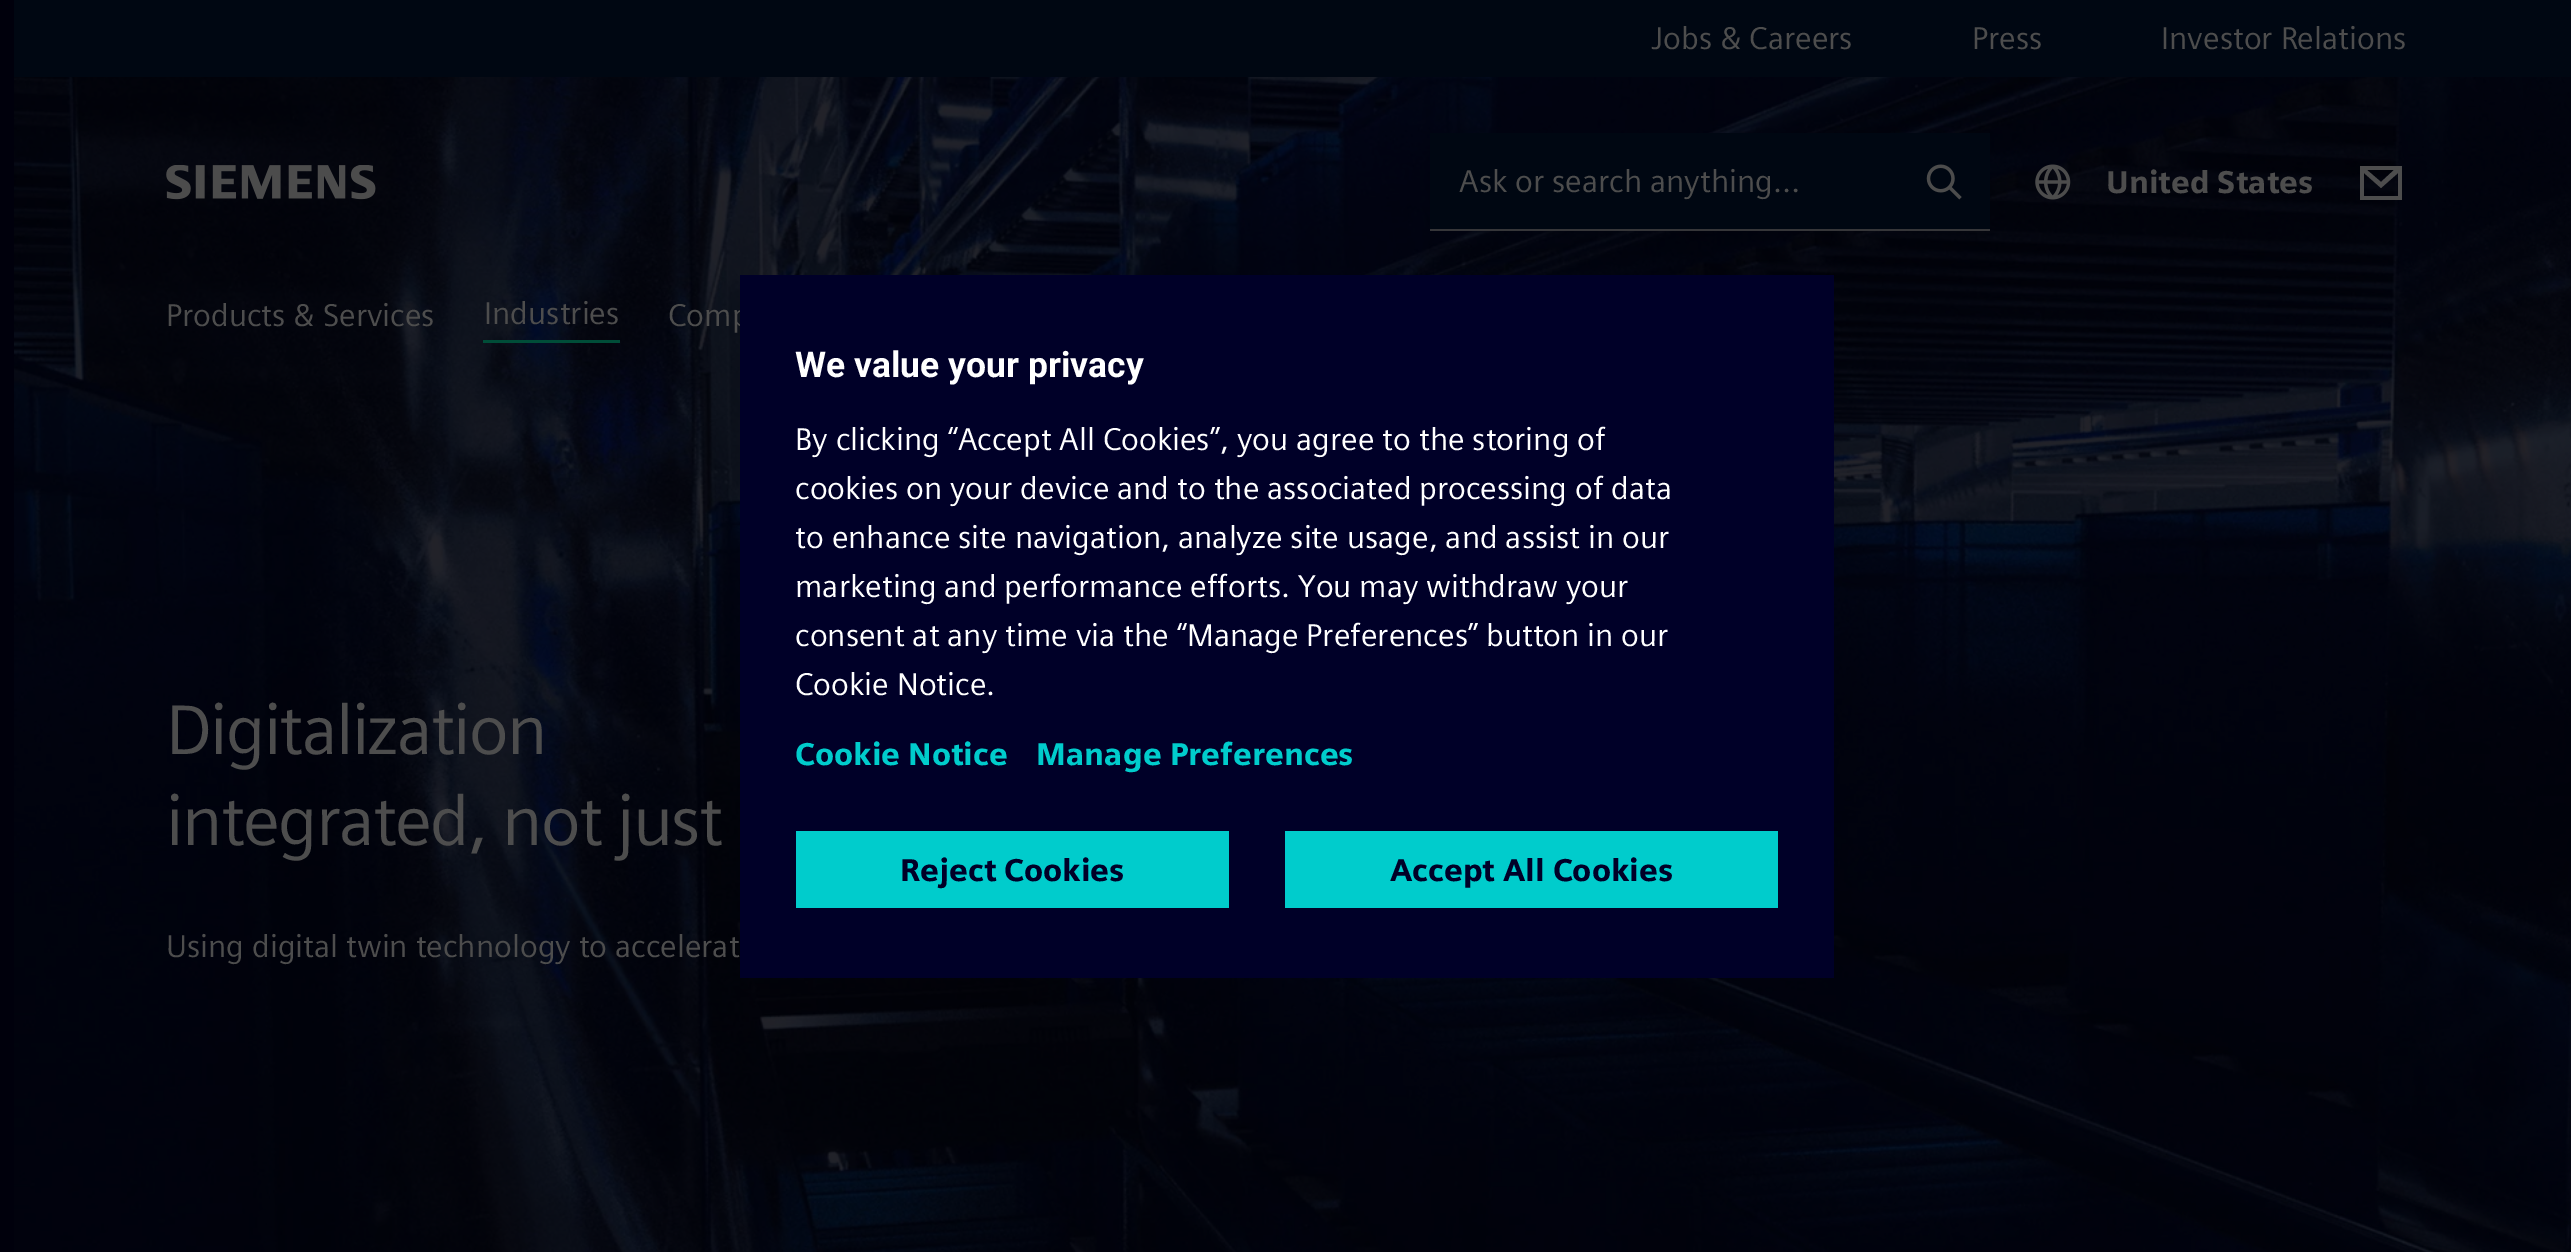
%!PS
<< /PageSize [2571 1252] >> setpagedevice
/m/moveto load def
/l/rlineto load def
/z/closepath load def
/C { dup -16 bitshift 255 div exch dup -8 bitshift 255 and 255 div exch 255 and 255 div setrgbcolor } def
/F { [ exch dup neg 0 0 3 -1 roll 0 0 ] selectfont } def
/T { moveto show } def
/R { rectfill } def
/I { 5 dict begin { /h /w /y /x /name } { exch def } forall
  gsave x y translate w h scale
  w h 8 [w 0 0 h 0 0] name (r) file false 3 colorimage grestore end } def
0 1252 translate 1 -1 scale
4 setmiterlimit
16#00000C C
0 0 2571 1252 R
16#000712 C
14 0 2557 77 R
/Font-Regular 31.5 F
16#4D4D4D C
(Jobs & Careers) 1651 49 T
(Press) 1972 49 T
(Investor Relations) 2161 49 T
(4.rgb) 14 77 2557 1175 I
(1.rgb) 166 165 210 35 I
16#000712 C
1430 133 560 96 R
16#363639 C
1430 229 560 2 R
16#4D4D4D C
(Ask or search anything…) 1459 192 T
(2.rgb) 1926 164 36 36 I
(3.rgb) 2035 164 36 36 I
/Font-Bold 31.5 F
(United States) 2106 193 T
2360 166 m 0 34 l 42 0 l 0 -34 l z 2394 170 m -13 12 l -14 -12 l z 2364 173 m 0 23 l 34 0 l 0 -23 l -17 15 l z eofill
/Font-Regular 31.5 F
(Products & Services) 166 326 T
16#004D38 C
483 340 137 3 R
16#4D4D4D C
(Industries) 484 324 T
(Comp) 668 326 T
/Font-Regular 70 F
166 754 m -1.75 0 (Digitalization) ashow
166 845 m -1.75 0 (integrated, not just) ashow
/Font-Regular 31.5 F
(Using digital twin technology to accelerat) 166 957 T
16#000028 C
740 275 1094 703 R
/Roboto-Bold 35.5 F
16#FFFFFF C
(We value your privacy) 795 377 T
/Font-Regular 31.5 F
(By clicking “Accept All Cookies”, you agree to the storing of) 795 450 T
(cookies on your device and to the associated processing of data) 795 499 T
(to enhance site navigation, analyze site usage, and assist in our) 795 548 T
(marketing and performance efforts. You may withdraw your) 795 597 T
(consent at any time via the “Manage Preferences” button in our) 795 646 T
(Cookie Notice.) 795 695 T
/Font-Bold 31.5 F
16#00CCCC C
(Cookie Notice) 795 765 T
(Manage Preferences) 1036 765 T
796 831 433 77 R
16#000028 C
(Reject Cookies) 900 881 T
16#00CCCC C
1285 831 493 77 R
16#000028 C
(Accept All Cookies) 1390 881 T
showpage
